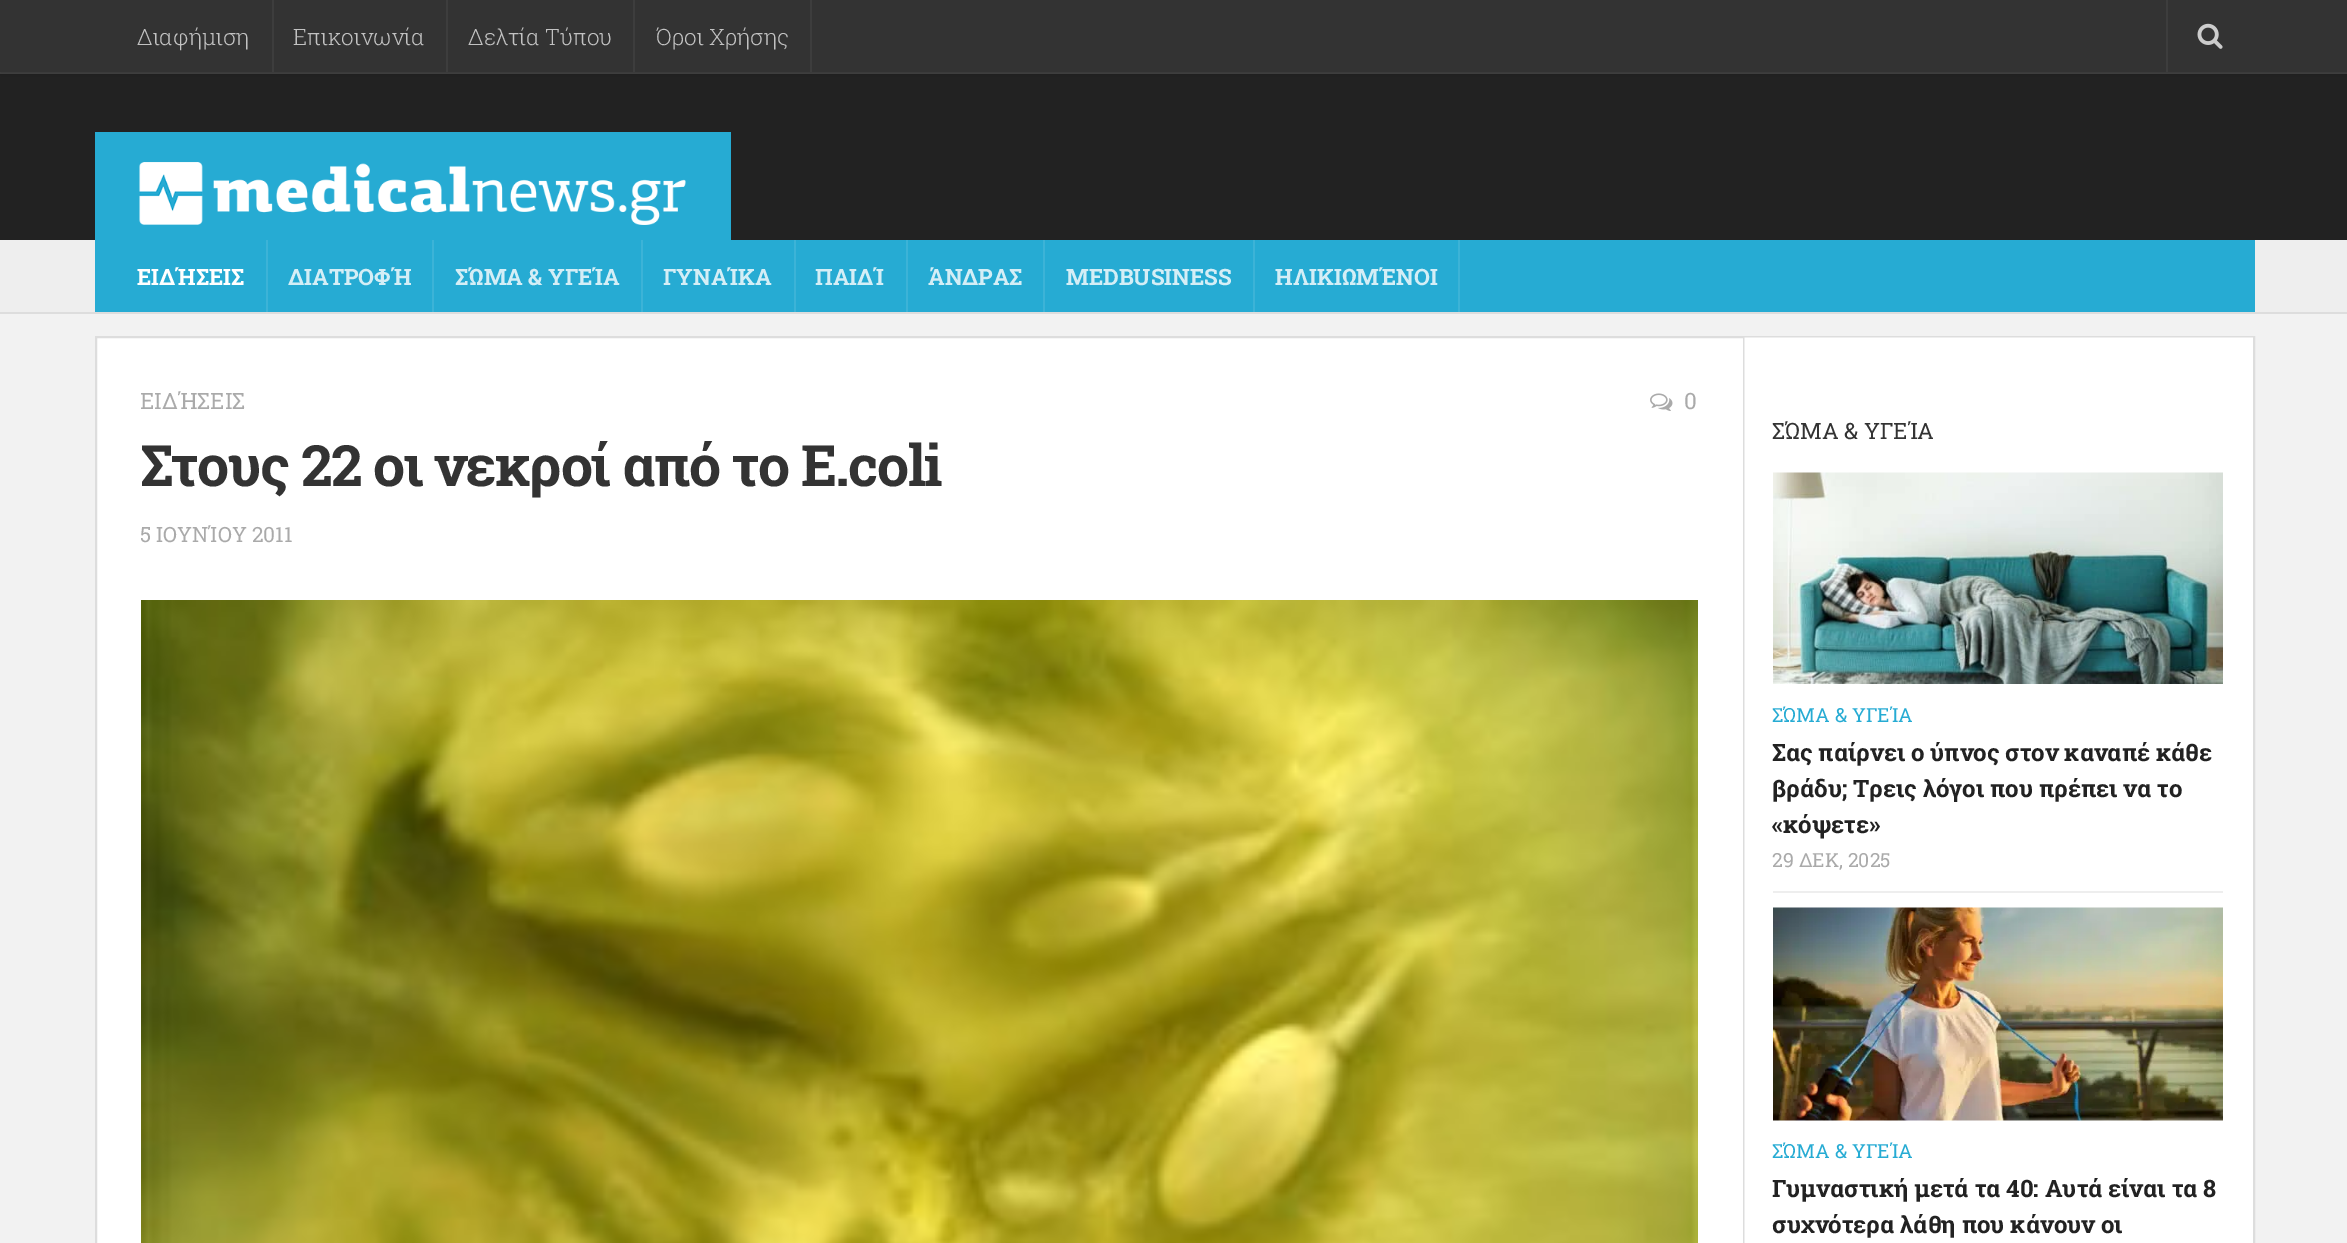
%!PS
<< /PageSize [2347 1243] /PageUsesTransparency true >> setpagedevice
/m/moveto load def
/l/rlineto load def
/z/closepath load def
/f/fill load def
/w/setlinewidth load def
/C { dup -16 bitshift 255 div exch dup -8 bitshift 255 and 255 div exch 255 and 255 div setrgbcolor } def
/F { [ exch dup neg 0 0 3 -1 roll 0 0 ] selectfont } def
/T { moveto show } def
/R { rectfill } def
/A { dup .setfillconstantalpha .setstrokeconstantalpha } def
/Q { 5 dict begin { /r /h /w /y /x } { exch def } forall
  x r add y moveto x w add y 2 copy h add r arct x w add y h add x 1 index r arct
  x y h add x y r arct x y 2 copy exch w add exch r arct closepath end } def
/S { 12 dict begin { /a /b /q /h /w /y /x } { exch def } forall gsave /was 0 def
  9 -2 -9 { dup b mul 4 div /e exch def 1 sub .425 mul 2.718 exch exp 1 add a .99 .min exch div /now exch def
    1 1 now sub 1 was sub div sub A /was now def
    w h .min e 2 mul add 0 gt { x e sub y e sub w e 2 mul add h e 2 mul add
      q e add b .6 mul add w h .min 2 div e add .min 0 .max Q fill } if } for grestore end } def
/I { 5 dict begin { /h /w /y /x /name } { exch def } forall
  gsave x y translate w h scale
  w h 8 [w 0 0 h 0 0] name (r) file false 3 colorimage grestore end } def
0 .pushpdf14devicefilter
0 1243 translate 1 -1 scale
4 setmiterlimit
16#F2F2F2 C
0 0 2347 1243 R
16#222222 C
0 74 2347 166 R
16#434343 C
0 72 m 0 2 l 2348 0 l 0 -72 l 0 70 l z f
16#000000 C
0 0 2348 72 0 4 .2 S
16#333333 C
0 0 2347 72 R
16#3D3D3D C
272 0 2 72 R
/RobotoSlab-Light 22.5 F
16#C2C2C2 C
(Διαφήμιση) 137 45 T
16#3D3D3D C
446 0 2 72 R
16#C2C2C2 C
(Επικοινωνία) 293 45 T
16#3D3D3D C
633 0 2 72 R
16#C2C2C2 C
(Δελτία Τύπου) 468 45 T
16#3D3D3D C
810 0 2 72 R
16#C2C2C2 C
(Όροι Χρήσης) 656 45 T
16#3D3D3D C
2166 0 2 72 R
(1.rgb) 2197 23 26 26 I
16#26ABD3 C
95 132 636 108 R
(2.rgb) 139 162 547 63 I
16#EEEEEE C
0 240 2347 72 R
16#DDDDDD C
0 312 2347 2 R
16#26ABD3 C
95 240 2160 72 R
16#3CB3D7 C
266 240 2 72 R
/RobotoSlab-Bold 22.5 F
16#FFFFFF C
(ΕΙΔΉΣΕΙΣ) 137 285 T
16#3CB3D7 C
432 240 2 72 R
16#D4EEF6 C
(ΔΙΑΤΡΟΦΉ) 288 285 T
16#3CB3D7 C
641 240 2 72 R
16#D4EEF6 C
(ΣΏΜΑ & ΥΓΕΊΑ) 455 285 T
16#3CB3D7 C
794 240 2 72 R
16#D4EEF6 C
(ΓΥΝΑΊΚΑ) 663 285 T
16#3CB3D7 C
906 240 2 72 R
16#D4EEF6 C
(ΠΑΙΔΊ) 815 285 T
16#3CB3D7 C
1043 240 2 72 R
16#D4EEF6 C
(ΆΝΔΡΑΣ) 928 285 T
16#3CB3D7 C
1253 240 2 72 R
16#D4EEF6 C
(MEDBUSINESS) 1066 285 T
16#3CB3D7 C
1458 240 2 72 R
16#D4EEF6 C
(ΗΛΙΚΙΩΜΈΝΟΙ) 1275 285 T
16#FFFFFF C
97 338 1646 905 R
16#DDDDDD C
2 w
96 337 2158 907 rectstroke
(3.rgb) 1743 337 510 906 I
/RobotoSlab-Regular 22.5 F
16#AAAAAA C
(ΕΙΔΉΣΕΙΣ) 140 409 T
(4.rgb) 1650 393 23 18 I
(0) 1684 409 T
/RobotoSlab-Bold 57 F
16#333333 C
140 486 m -1.5 0 (Στους 22 οι νεκροί από το E.coli) ashow
/RobotoSlab-Regular 21 F
16#AAAAAA C
(5 ΙΟΥΝΊΟΥ 2011) 140 542 T
(5.rgb) 141 600 1557 643 I
/RobotoSlab-Regular 22.5 F
16#333333 C
(ΣΏΜΑ & ΥΓΕΊΑ) 1772 439 T
16#EEEEEE C
1773 891 450 2 R
(6.rgb) 1773 472 450 212 I
/RobotoSlab-Regular 19.5 F
16#26ABD3 C
(ΣΏΜΑ & ΥΓΕΊΑ) 1772 722 T
/RobotoSlab-Bold 24 F
16#222222 C
(Σας παίρνει ο ύπνος στον καναπέ κάθε) 1772 761 T
(βράδυ; Τρεις λόγοι που πρέπει να το) 1772 797 T
(«κόψετε») 1772 833 T
/RobotoSlab-Regular 19.5 F
16#AAAAAA C
(29 ΔΕΚ, 2025) 1772 867 T
(7.rgb) 1773 907 450 214 I
16#26ABD3 C
(ΣΏΜΑ & ΥΓΕΊΑ) 1772 1158 T
/RobotoSlab-Bold 24 F
16#222222 C
(Γυμναστική μετά τα 40: Αυτά είναι τα 8) 1772 1197 T
(συχνότερα λάθη που κάνουν οι) 1772 1233 T
.poppdf14devicefilter showpage
